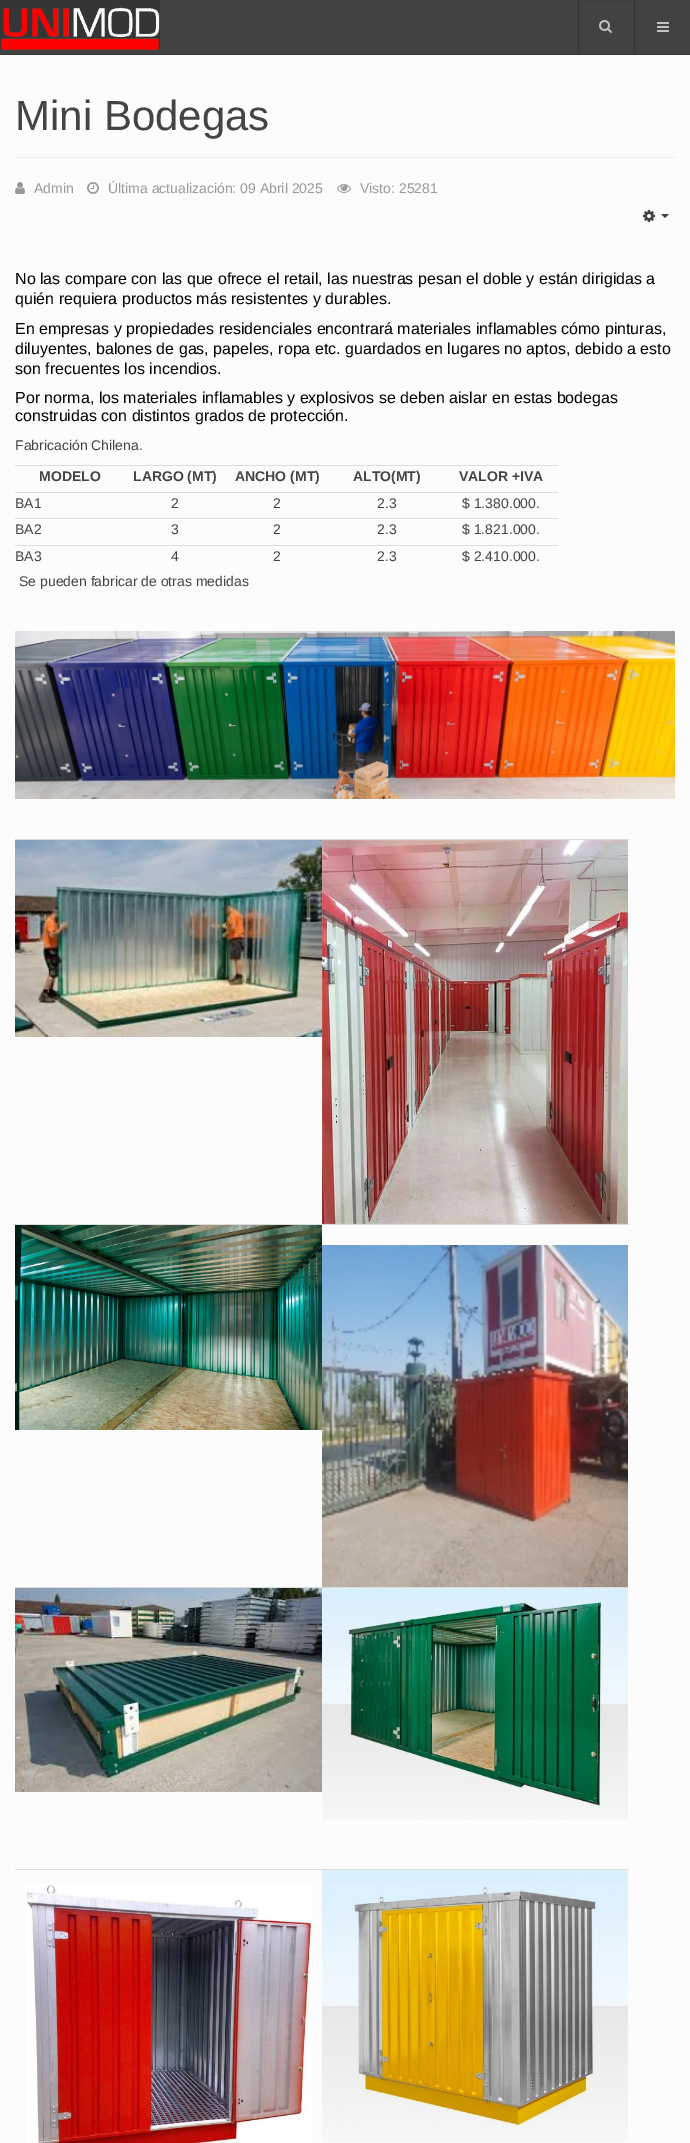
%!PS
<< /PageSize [690 2143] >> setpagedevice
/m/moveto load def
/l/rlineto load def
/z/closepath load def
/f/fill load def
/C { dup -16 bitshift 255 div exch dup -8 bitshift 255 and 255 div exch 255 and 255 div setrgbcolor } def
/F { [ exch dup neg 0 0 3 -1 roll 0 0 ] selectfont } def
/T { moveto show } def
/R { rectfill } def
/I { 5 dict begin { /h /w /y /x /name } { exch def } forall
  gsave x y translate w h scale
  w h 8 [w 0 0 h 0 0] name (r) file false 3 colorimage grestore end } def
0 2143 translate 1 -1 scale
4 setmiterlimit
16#FCFCFC C
0 0 690 2143 R
16#424242 C
0 0 690 54 R
16#353535 C
0 54 690 1 R
0 0 160 50 R
(1.rgb) 0 7 160 43 I
634 0 1 54 R
578 0 1 54 R
16#3D3D3D C
579 0 55 1 R
(2.rgb) 599 20 13 13 I
(3.rgb) 657 22 12 10 I
16#EEEEEE C
15 157 660 1 R
/LiberationSans-Regular 42 F
16#444444 C
(Mini Bodegas) 15 130 T
(4.rgb) 15 182 10 12 I
/LiberationSans-Regular 14 F
16#999999 C
(Admin) 34 193 T
(5.rgb) 87 182 12 12 I
(Última actualización: 09 Abril 2025) 108 193 T
(6.rgb) 337 184 14 9 I
(Visto: 25281) 360 193 T
(7.rgb) 643 210 12 12 I
16#424242 C
661 214 m 8 0 l -4 4 l z f
/LiberationSans-Regular 16 F
16#000000 C
(No las compare con las que ofrece el retail, las nuestras pesan el doble y están dirigidas a) 15 284 T
(quién requiera productos más resistentes y durables.) 15 304 T
(En empresas y propiedades residenciales encontrará materiales inflamables cómo pinturas,) 15 334 T
(diluyentes, balones de gas, papeles, ropa etc. guardados en lugares no aptos, debido a esto) 15 354 T
(son frecuentes los incendios.) 15 374 T
(Por norma, los materiales inflamables y explosivos se deben aislar en estas bodegas) 15 403 T
(construidas con distintos grados de protección.) 15 421 T
/LiberationSans-Regular 14 F
16#444444 C
(Fabricación Chilena.) 15 450 T
/LiberationSans-Bold 14 F
(MODELO) 39 481 T
(LARGO \(MT\)) 133 481 T
(ANCHO \(MT\)) 235 481 T
(ALTO\(MT\)) 353 481 T
16#DDDDDD C
15 465 543 1 R
16#444444 C
(VALOR +IVA) 459 481 T
/LiberationSans-Regular 14 F
(BA1) 15 508 T
(2) 171 508 T
(2) 273 508 T
(2.3) 377 508 T
16#DDDDDD C
15 492 543 1 R
16#444444 C
($ 1.380.000.) 462 508 T
(BA2) 15 534 T
(3) 171 534 T
(2) 273 534 T
(2.3) 377 534 T
16#DDDDDD C
15 518 543 1 R
16#444444 C
($ 1.821.000.) 462 534 T
(BA3) 15 561 T
(4) 171 561 T
(2) 273 561 T
(2.3) 377 561 T
16#DDDDDD C
15 545 543 1 R
16#444444 C
($ 2.410.000.) 462 561 T
(Se pueden fabricar de otras medidas) 19 586 T
(8.rgb) 15 631 660 168 I
16#DDDDDD C
15 839 614 1 R
(9.rgb) 322 840 306 384 I
(10.rgb) 15 840 307 197 I
15 1224 614 1 R
(11.rgb) 322 1245 306 342 I
(12.rgb) 15 1225 307 205 I
15 1587 614 1 R
(13.rgb) 322 1588 306 232 I
(14.rgb) 15 1588 307 204 I
15 1869 614 1 R
(15.rgb) 322 1870 306 272 I
(16.rgb) 26 1884 286 259 I
showpage
